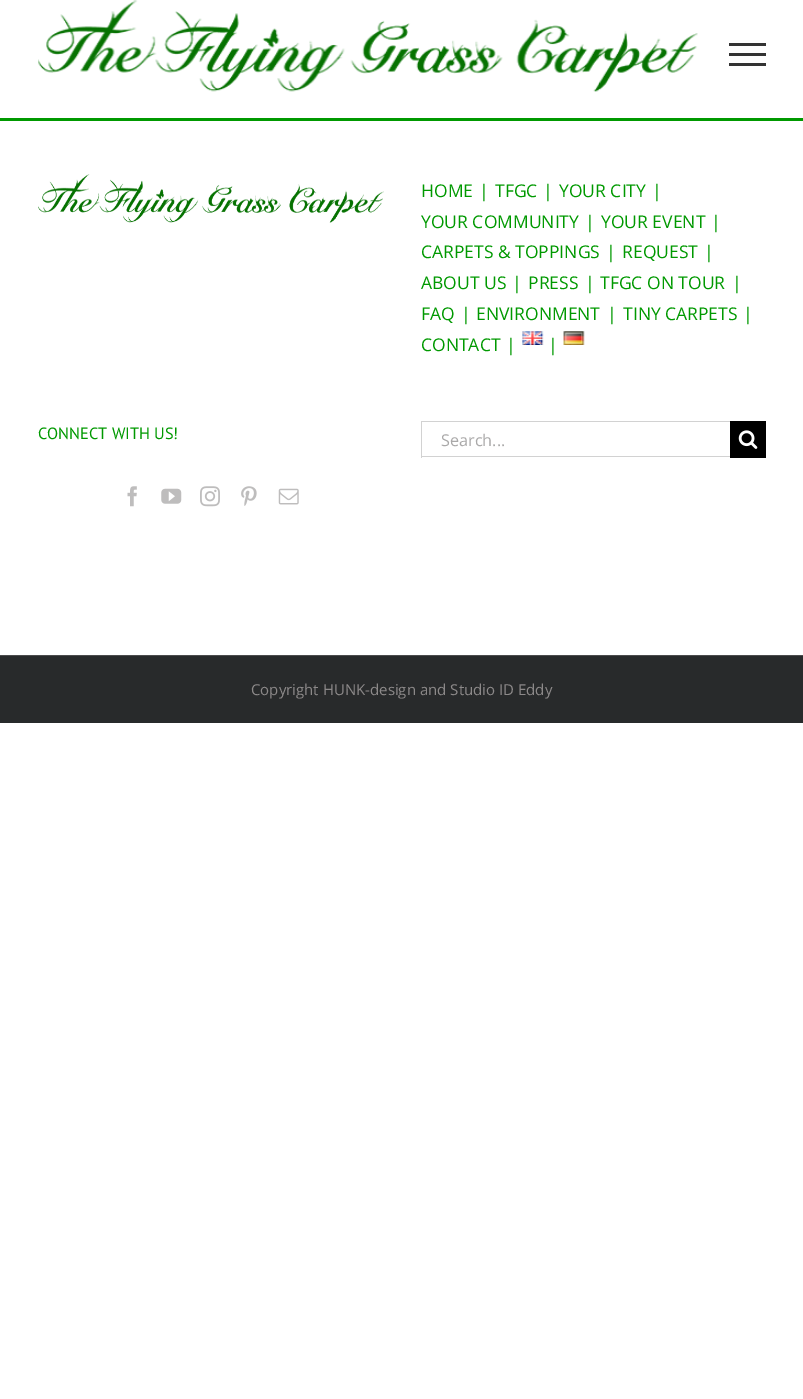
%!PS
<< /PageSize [803 1399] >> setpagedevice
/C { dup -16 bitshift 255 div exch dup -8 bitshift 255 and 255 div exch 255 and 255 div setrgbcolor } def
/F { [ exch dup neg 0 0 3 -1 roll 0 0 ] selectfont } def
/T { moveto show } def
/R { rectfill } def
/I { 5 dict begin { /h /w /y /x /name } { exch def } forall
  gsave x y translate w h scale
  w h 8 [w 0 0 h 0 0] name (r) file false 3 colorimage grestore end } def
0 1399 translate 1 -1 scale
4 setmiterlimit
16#FFFFFF C
0 0 803 1399 R
(1.rgb) 38 0 660 92 I
16#333333 C
729 43 37 3 R
729 53 37 3 R
729 63 37 3 R
16#009900 C
0 118 803 3 R
(2.rgb) 38 174 346 49 I
/OpenSans-Regular 17.5 F
(HOME) 421 197 T
(|) 479 197 T
(TFGC) 495 197 T
(|) 543 197 T
(YOUR CITY) 559 197 T
(|) 652 197 T
(YOUR COMMUNITY) 421 228 T
(|) 585 228 T
(YOUR EVENT) 601 228 T
(|) 711 228 T
(CARPETS & TOPPINGS) 421 258 T
(|) 606 258 T
(REQUEST) 622 258 T
(|) 704 258 T
(ABOUT US) 421 289 T
(|) 512 289 T
(PRESS) 528 289 T
(|) 585 289 T
(TFGC ON TOUR) 600 289 T
(|) 732 289 T
(FAQ) 421 320 T
(|) 461 320 T
(ENVIRONMENT) 476 320 T
(|) 607 320 T
(TINY CARPETS) 623 320 T
(|) 743 320 T
(CONTACT) 421 351 T
(|) 506 351 T
(3.rgb) 522 331 22 14 I
(|) 548 351 T
(4.rgb) 563 331 22 14 I
/PTSans-Regular 16.25 F
(CONNECT WITH US!) 38 439 T
(5.rgb) 127 486 10 21 I
(6.rgb) 161 488 21 16 I
(7.rgb) 200 486 20 21 I
(8.rgb) 241 486 16 20 I
(9.rgb) 278 488 21 17 I
16#D2D2D2 C
421 421 309 1 R
421 456 309 1 R
421 421 1 37 R
/OpenSans-Regular 16.25 F
16#AAA9A9 C
(Search...) 441 446 T
16#000000 C
730 421 36 37 R
(10.rgb) 738 430 20 19 I
16#282A2B C
0 656 803 67 R
16#4B4C4D C
0 655 803 1 R
/OpenSans-Regular 15 F
16#8C8989 C
(Copyright HUNK-design and Studio ID Eddy) 251 695 T
showpage
